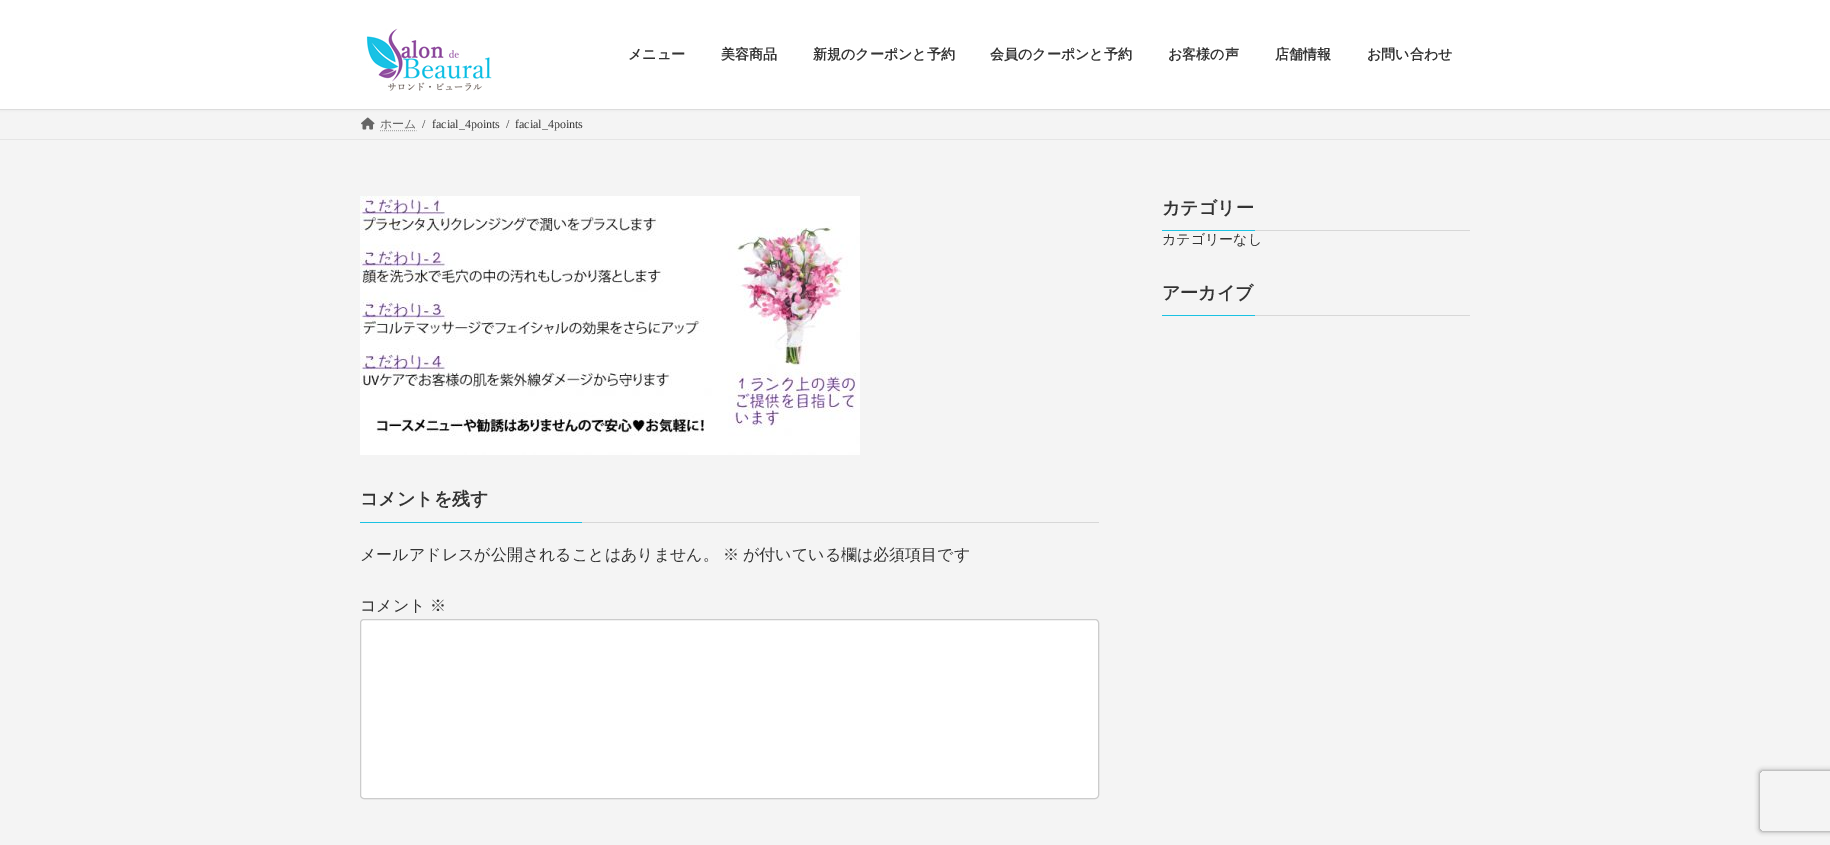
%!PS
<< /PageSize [1830 845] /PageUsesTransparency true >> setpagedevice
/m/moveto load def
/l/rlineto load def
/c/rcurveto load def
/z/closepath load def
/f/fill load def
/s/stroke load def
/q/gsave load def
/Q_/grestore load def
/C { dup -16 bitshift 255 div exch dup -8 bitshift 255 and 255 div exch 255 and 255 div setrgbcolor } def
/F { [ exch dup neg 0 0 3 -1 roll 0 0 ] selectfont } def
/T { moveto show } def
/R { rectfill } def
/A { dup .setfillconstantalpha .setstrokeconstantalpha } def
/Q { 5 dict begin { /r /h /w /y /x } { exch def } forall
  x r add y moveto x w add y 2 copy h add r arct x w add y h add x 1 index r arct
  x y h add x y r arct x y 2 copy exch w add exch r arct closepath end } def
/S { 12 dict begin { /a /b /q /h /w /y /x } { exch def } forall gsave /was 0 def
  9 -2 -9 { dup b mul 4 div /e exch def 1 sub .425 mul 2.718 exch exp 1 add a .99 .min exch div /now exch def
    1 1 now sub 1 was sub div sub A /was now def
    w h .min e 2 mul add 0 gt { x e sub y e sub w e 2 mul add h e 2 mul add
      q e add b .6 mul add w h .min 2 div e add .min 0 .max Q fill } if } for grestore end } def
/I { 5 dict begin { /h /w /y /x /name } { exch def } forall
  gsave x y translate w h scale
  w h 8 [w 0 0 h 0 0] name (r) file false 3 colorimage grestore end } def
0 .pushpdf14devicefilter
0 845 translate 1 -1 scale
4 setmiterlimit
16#F4F4F4 C
0 0 1830 845 R
16#E5E5E5 C
0 109 1830 1 R
16#000000 C
0 1 1830 109 0 1.5 .05 S
16#FFFFFF C
0 0 1830 109 R
(1.rgb) 366 28 126 63 I
/WenQuanYiZenHei-Bold 14 F
16#333333 C
(メニュー) 628 59 T
(美容商品) 721 59 T
(新規のクーポンと予約) 813 59 T
(会員のクーポンと予約) 990 59 T
(お客様の声) 1168 59 T
(店舗情報) 1275 59 T
(お問い合わせ) 1367 59 T
16#E5E5E5 C
0 139 1830 1 R
(2.rgb) 361 117 14 13 I
/WenQuanYiZenHei-Medium 12 F
16#666666 C
(ホーム) 380 128 T
16#ABABAB C
[1 1] 0 setdash
380 130.5 m 36.5 0 l s
/LiberationSerif-Regular 12 F
16#333333 C
(/) 422 128 T
(facial_4points) 432 128 T
(/) 506 128 T
(facial_4points) 515 128 T
16#D7D7D7 C
1255 230 215 1 R
/WenQuanYiZenHei-Bold 18 F
16#333333 C
(カテゴリー) 1162 214 T
16#19C2E3 C
1162 230 93 1 R
/WenQuanYiZenHei-Medium 14 F
16#333333 C
(カテゴリーなし) 1162 244 T
16#D7D7D7 C
1255 315 215 1 R
/WenQuanYiZenHei-Bold 18 F
16#333333 C
(アーカイブ) 1162 299 T
16#19C2E3 C
1162 315 93 1 R
(3.rgb) 360 196 500 259 I
16#D7D7D7 C
582 522 517 1 R
16#333333 C
(コメントを残す) 360 505 T
16#19C2E3 C
360 522 222 1 R
/WenQuanYiZenHei-Medium 16 F
16#333333 C
(メールアドレスが公開されることはありません。) 360 560 T
(※) 723 560 T
(が付いている欄は必須項目です) 743 560 T
(コメント) 360 611 T
(※) 430 611 T
16#FFFFFF C
360 619 739 180 4 Q f
0.2 A
16#000000 C
[] 0 setdash
360.5 619.5 738 179 3.5 Q s
q
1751 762 m 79 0 l 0 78 l -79 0 l z 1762 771 m 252 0 l 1 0 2 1 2 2 c 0 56 l 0 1 -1 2 -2 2 c -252 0 l -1 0 -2 -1 -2 -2 c 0 -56 l 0 -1 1 -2 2 -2 c z eoclip newpath
1 A
16#808080 C
1760 771 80 60 2 2.5 1 S
Q_
.poppdf14devicefilter showpage
